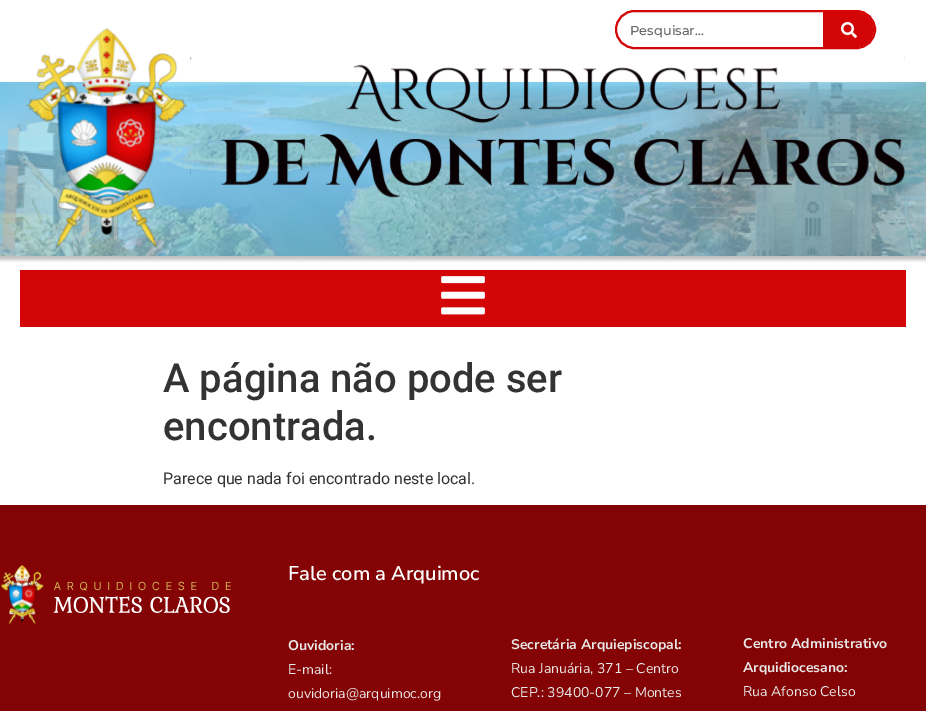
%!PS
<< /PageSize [926 711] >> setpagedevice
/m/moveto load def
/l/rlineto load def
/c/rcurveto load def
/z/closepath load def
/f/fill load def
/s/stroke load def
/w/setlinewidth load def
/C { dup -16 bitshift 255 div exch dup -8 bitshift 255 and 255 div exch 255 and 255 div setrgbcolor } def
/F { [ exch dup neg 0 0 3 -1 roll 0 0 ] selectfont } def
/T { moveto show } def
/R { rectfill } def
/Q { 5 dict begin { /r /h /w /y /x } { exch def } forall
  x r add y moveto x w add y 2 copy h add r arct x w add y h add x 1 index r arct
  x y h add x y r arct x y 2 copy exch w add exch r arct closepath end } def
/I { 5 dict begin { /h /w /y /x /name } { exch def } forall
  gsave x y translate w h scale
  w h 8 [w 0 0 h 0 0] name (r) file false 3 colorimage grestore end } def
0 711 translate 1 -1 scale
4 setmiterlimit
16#FFFFFF C
0 0 926 711 R
(1.rgb) 0 82 926 181 I
(3.rgb) 26 28 879 220 I
16#D30506 C
2 w
616 11 259 37 18.5 Q s
/Montserrat-Medium 13 F
16#666666 C
(Pesquisar...) 630 35 T
16#D30506 C
823 12 m 33.5 0 l 9.5 0 17.5 8 17.5 17.5 c 0 9.5 -8 17.5 -17.5 17.5 c -33.5 0 l z f
(2.rgb) 841 22 16 16 I
20 270 886 57 R
(4.rgb) 441 276 44 39 I
/Roboto-Medium 40 F
16#333333 C
(A página não pode ser) 163 392 T
(encontrada.) 163 440 T
/Roboto-Regular 16 F
(Parece que nada foi encontrado neste local.) 163 484 T
16#840304 C
0 505 926 206 R
(5.rgb) 0 564 231 61 I
/NunitoSans-SemiBold 20 F
16#FFFFFF C
(Fale com a Arquimoc) 288 580 T
/NunitoSans-Bold 14 F
16#E9E9E9 C
(Ouvidoria:) 288 650 T
/NunitoSans-Regular 14 F
(E-mail:) 288 674 T
(ouvidoria@arquimoc.org) 288 698 T
/NunitoSans-Bold 14 F
(Secretária Arquiepiscopal:) 511 649 T
/NunitoSans-Regular 14 F
(Rua Januária, 371 – Centro) 511 673 T
(CEP.: 39400-077 – Montes) 511 697 T
/NunitoSans-Bold 14 F
(Centro Administrativo) 743 648 T
(Arquidiocesano:) 743 672 T
/NunitoSans-Regular 14 F
(Rua Afonso Celso) 743 696 T
showpage
